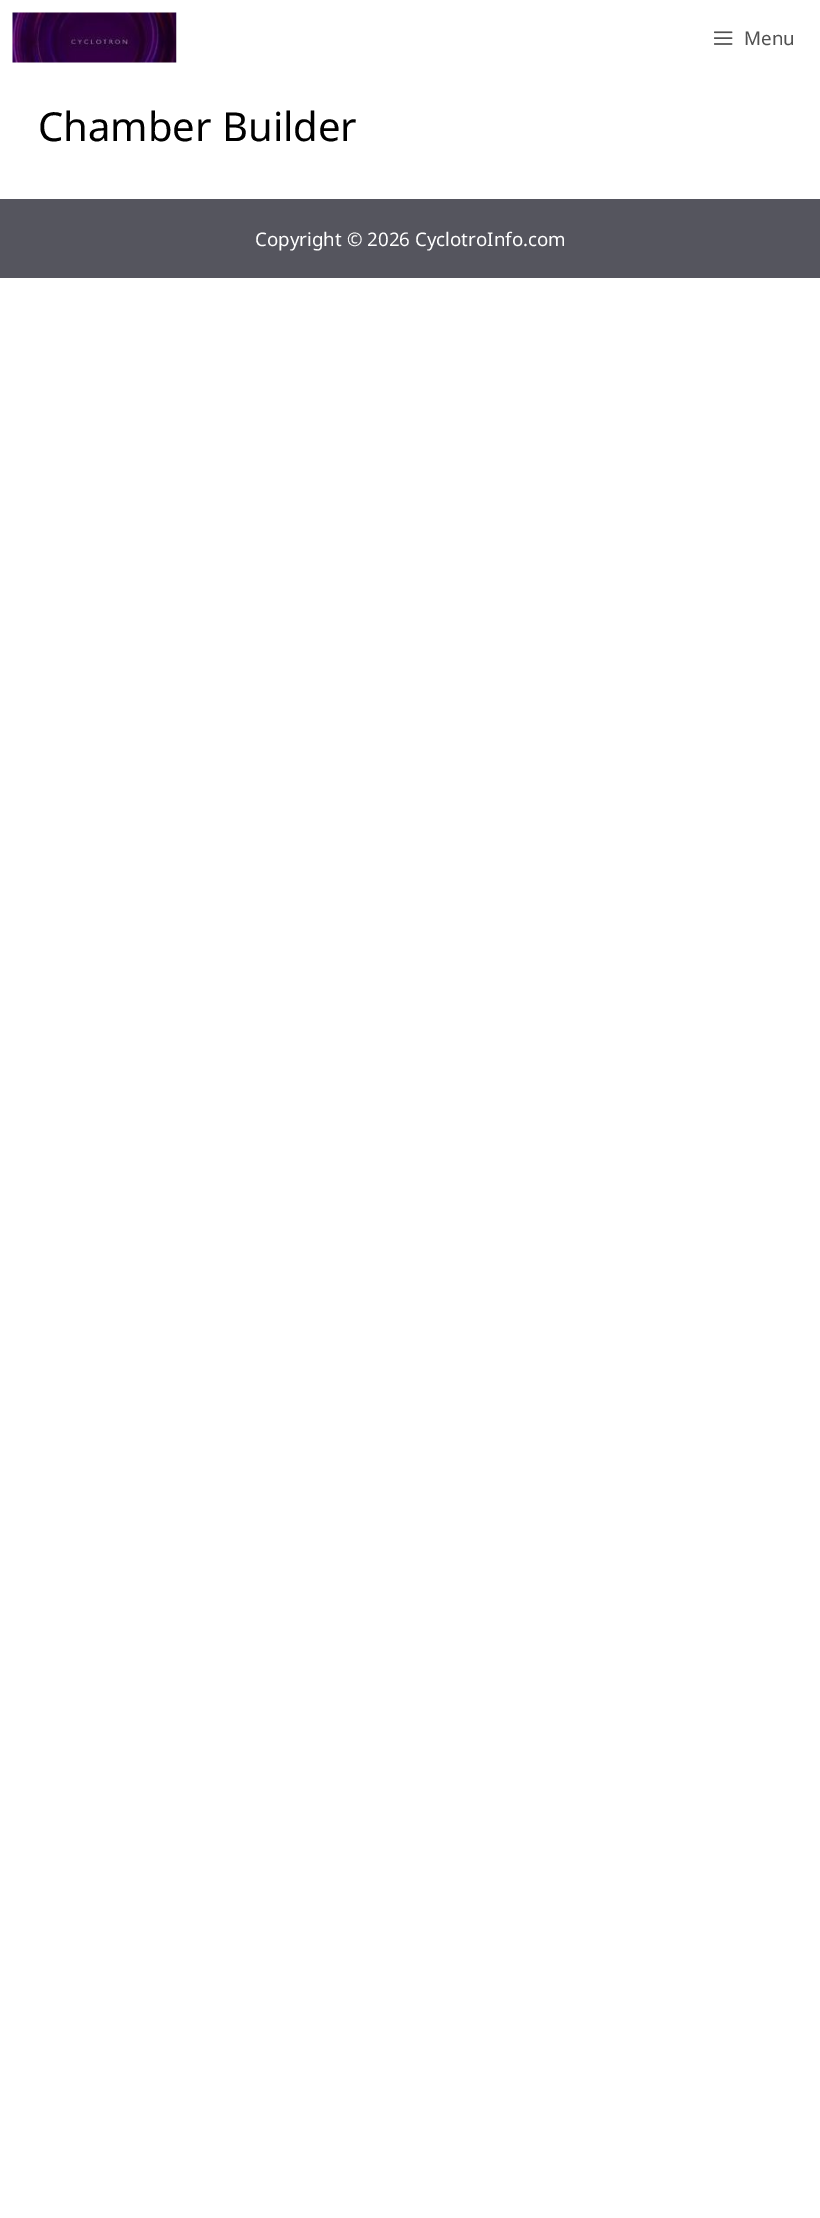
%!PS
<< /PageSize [820 2218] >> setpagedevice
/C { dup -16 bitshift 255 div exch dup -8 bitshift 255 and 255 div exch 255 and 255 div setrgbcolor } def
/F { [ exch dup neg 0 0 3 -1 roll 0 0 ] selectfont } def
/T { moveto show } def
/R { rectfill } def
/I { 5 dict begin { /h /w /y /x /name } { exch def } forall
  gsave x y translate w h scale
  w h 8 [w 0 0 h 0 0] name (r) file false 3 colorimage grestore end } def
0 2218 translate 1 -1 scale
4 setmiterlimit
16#FFFFFF C
0 0 820 2218 R
(1.rgb) 12 12 165 51 I
(2.rgb) 714 31 19 14 I
/NotoSans-Regular 18.75 F
16#515151 C
(Menu) 744 45 T
/NotoSans-Regular 40 F
16#000000 C
(Chamber Builder) 38 141 T
16#55555E C
0 199 820 79 R
/NotoSans-Regular 18.75 F
16#FFFFFF C
(Copyright © 2026 CyclotroInfo.com) 255 246 T
showpage
